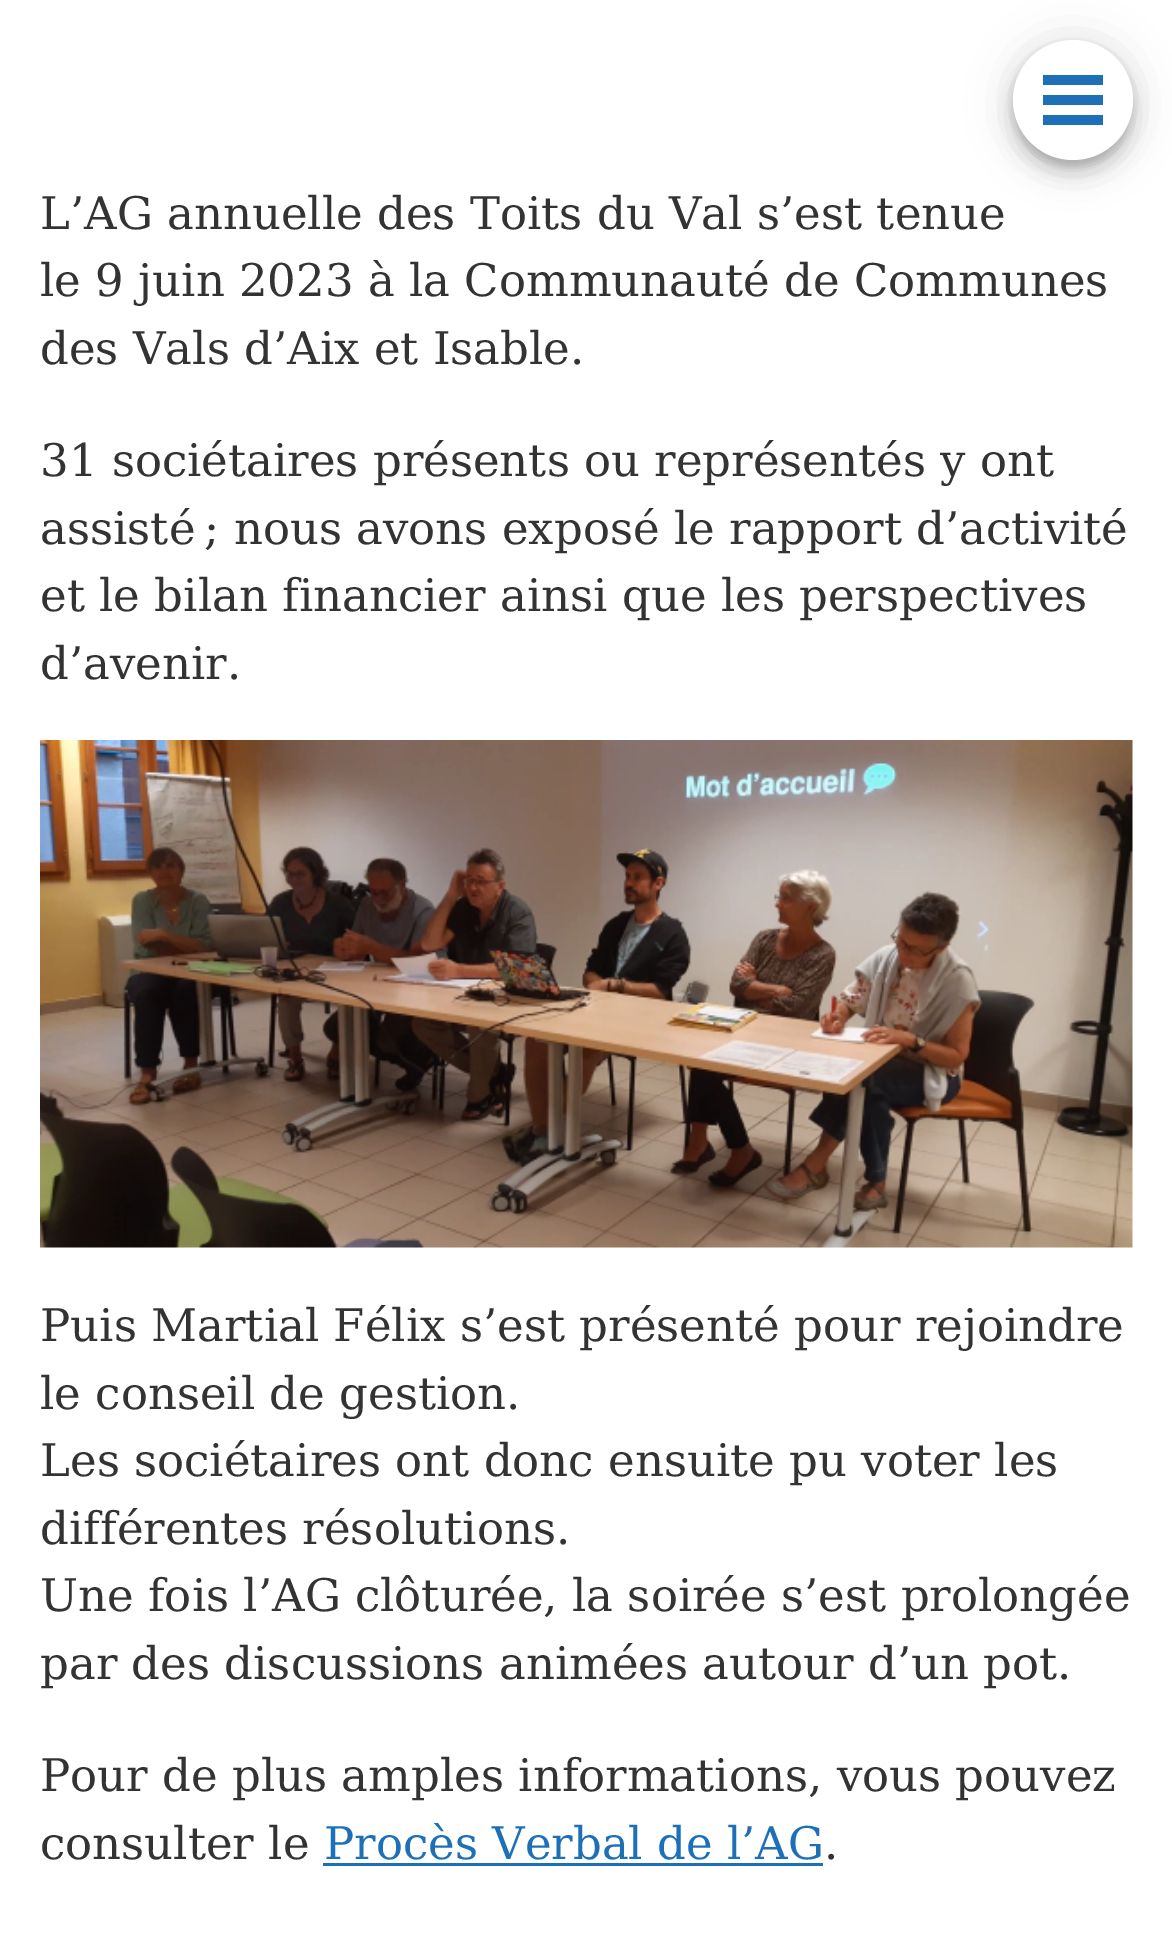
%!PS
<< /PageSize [1172 1938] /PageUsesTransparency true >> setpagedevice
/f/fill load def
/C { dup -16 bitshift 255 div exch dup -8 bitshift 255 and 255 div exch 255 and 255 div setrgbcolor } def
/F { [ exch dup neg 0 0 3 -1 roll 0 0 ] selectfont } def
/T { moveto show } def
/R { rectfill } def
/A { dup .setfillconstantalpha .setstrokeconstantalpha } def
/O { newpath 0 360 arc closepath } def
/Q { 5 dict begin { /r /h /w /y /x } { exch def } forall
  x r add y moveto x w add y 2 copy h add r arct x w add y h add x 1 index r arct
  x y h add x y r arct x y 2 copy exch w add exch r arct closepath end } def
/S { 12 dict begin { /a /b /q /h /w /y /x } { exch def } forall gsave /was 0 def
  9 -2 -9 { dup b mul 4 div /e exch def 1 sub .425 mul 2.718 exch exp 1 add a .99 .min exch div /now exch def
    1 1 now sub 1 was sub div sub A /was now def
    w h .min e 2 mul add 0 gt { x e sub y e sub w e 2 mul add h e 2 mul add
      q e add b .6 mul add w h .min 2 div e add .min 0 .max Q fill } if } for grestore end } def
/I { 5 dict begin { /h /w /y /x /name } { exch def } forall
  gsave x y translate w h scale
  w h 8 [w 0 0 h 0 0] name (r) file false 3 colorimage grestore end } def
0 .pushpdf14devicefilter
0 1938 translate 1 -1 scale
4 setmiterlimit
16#FFFFFF C
0 0 1172 1938 R
16#000000 C
1013 43 120 120 60 22.5 .12 S
1013 55 120 120 60 12.5 .14 S
1015 50 115 115 57.5 6 .2 S
16#FFFFFF C
1073 100 60 O f
16#1D70B7 C
1043 95 60 10 R
1043 75 60 10 R
1043 115 60 10 R
/DejaVuSerif-Regular 45 F
16#333333 C
(L’AG annuelle des Toits du Val s’est tenue) 40 229 T
(le 9 juin 2023 à la Communauté de Communes) 40 296 T
(des Vals d’Aix et Isable.) 40 364 T
(31 sociétaires présents ou représentés y ont) 40 476 T
(assisté ; nous avons exposé le rapport d’activité) 40 544 T
(et le bilan financier ainsi que les perspectives) 40 611 T
(d’avenir.) 40 679 T
(1.rgb) 40 740 1093 508 I
(Puis Martial Félix s’est présenté pour rejoindre) 40 1341 T
(le conseil de gestion.) 40 1409 T
(Les sociétaires ont donc ensuite pu voter les) 40 1476 T
(différentes résolutions.) 40 1544 T
(Une fois l’AG clôturée, la soirée s’est prolongée) 40 1611 T
(par des discussions animées autour d’un pot.) 40 1679 T
(Pour de plus amples informations, vous pouvez) 40 1791 T
(consulter le) 40 1859 T
16#1D70B7 C
(Procès Verbal de l’AG) 324 1859 T
323 1863 500 3 R
16#333333 C
(.) 824 1859 T
.poppdf14devicefilter showpage
